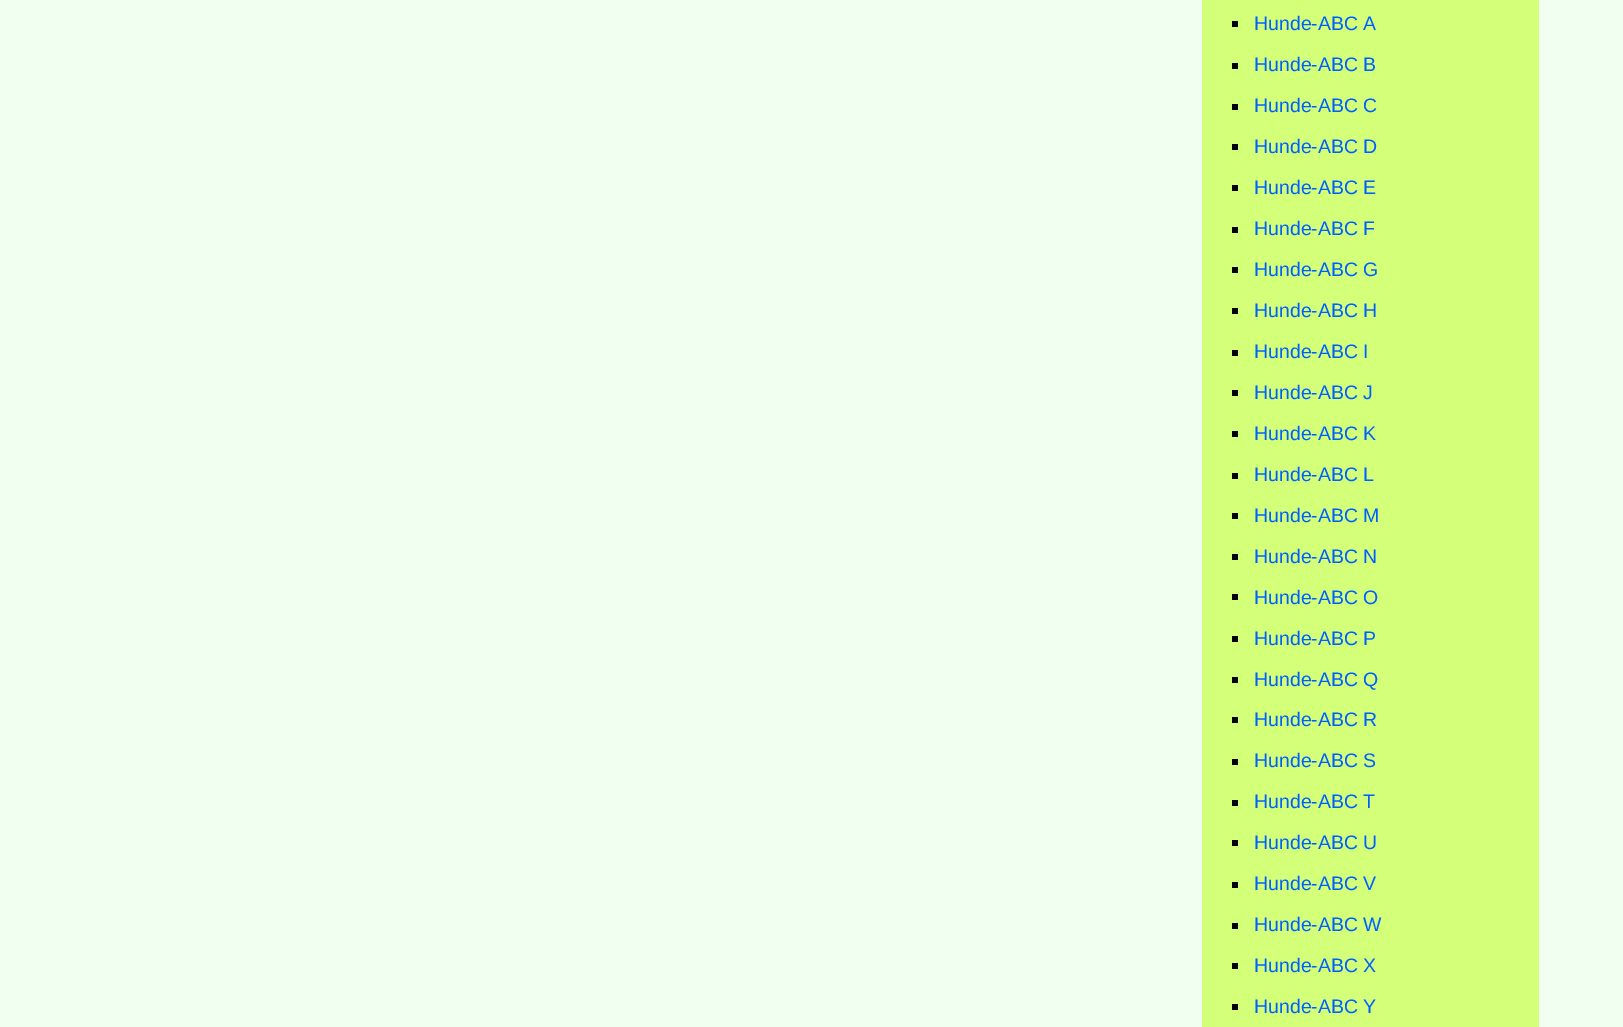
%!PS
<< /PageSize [1623 1027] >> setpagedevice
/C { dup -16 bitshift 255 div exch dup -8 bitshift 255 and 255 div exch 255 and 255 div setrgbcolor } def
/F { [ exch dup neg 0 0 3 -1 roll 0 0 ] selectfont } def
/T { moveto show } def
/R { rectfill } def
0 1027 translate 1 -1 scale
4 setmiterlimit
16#F0FFF0 C
0 0 1623 1027 R
16#D3FF79 C
1202 0 337 1027 R
16#000000 C
1232 21 6 6 R
/LiberationSans-Regular 19.5 F
16#0060FF C
(Hunde-ABC A) 1254 30 T
16#000000 C
1232 63 6 6 R
16#0060FF C
(Hunde-ABC B) 1254 71 T
16#000000 C
1232 104 6 6 R
16#0060FF C
(Hunde-ABC C) 1254 112 T
16#000000 C
1232 144 6 6 R
16#0060FF C
(Hunde-ABC D) 1254 153 T
16#000000 C
1232 185 6 6 R
16#0060FF C
(Hunde-ABC E) 1254 194 T
16#000000 C
1232 227 6 6 R
16#0060FF C
(Hunde-ABC F) 1254 235 T
16#000000 C
1232 267 6 6 R
16#0060FF C
(Hunde-ABC G) 1254 276 T
16#000000 C
1232 308 6 6 R
16#0060FF C
(Hunde-ABC H) 1254 317 T
16#000000 C
1232 350 6 6 R
16#0060FF C
(Hunde-ABC I) 1254 358 T
16#000000 C
1232 390 6 6 R
16#0060FF C
(Hunde-ABC J) 1254 399 T
16#000000 C
1232 431 6 6 R
16#0060FF C
(Hunde-ABC K) 1254 440 T
16#000000 C
1232 473 6 6 R
16#0060FF C
(Hunde-ABC L) 1254 481 T
16#000000 C
1232 513 6 6 R
16#0060FF C
(Hunde-ABC M) 1254 522 T
16#000000 C
1232 554 6 6 R
16#0060FF C
(Hunde-ABC N) 1254 563 T
16#000000 C
1232 594 6 6 R
16#0060FF C
(Hunde-ABC O) 1254 604 T
16#000000 C
1232 636 6 6 R
16#0060FF C
(Hunde-ABC P) 1254 645 T
16#000000 C
1232 677 6 6 R
16#0060FF C
(Hunde-ABC Q) 1254 686 T
16#000000 C
1232 717 6 6 R
16#0060FF C
(Hunde-ABC R) 1254 726 T
16#000000 C
1232 759 6 6 R
16#0060FF C
(Hunde-ABC S) 1254 767 T
16#000000 C
1232 800 6 6 R
16#0060FF C
(Hunde-ABC T) 1254 808 T
16#000000 C
1232 840 6 6 R
16#0060FF C
(Hunde-ABC U) 1254 849 T
16#000000 C
1232 882 6 6 R
16#0060FF C
(Hunde-ABC V) 1254 890 T
16#000000 C
1232 923 6 6 R
16#0060FF C
(Hunde-ABC W) 1254 931 T
16#000000 C
1232 963 6 6 R
16#0060FF C
(Hunde-ABC X) 1254 972 T
16#000000 C
1232 1004 6 6 R
16#0060FF C
(Hunde-ABC Y) 1254 1013 T
showpage
